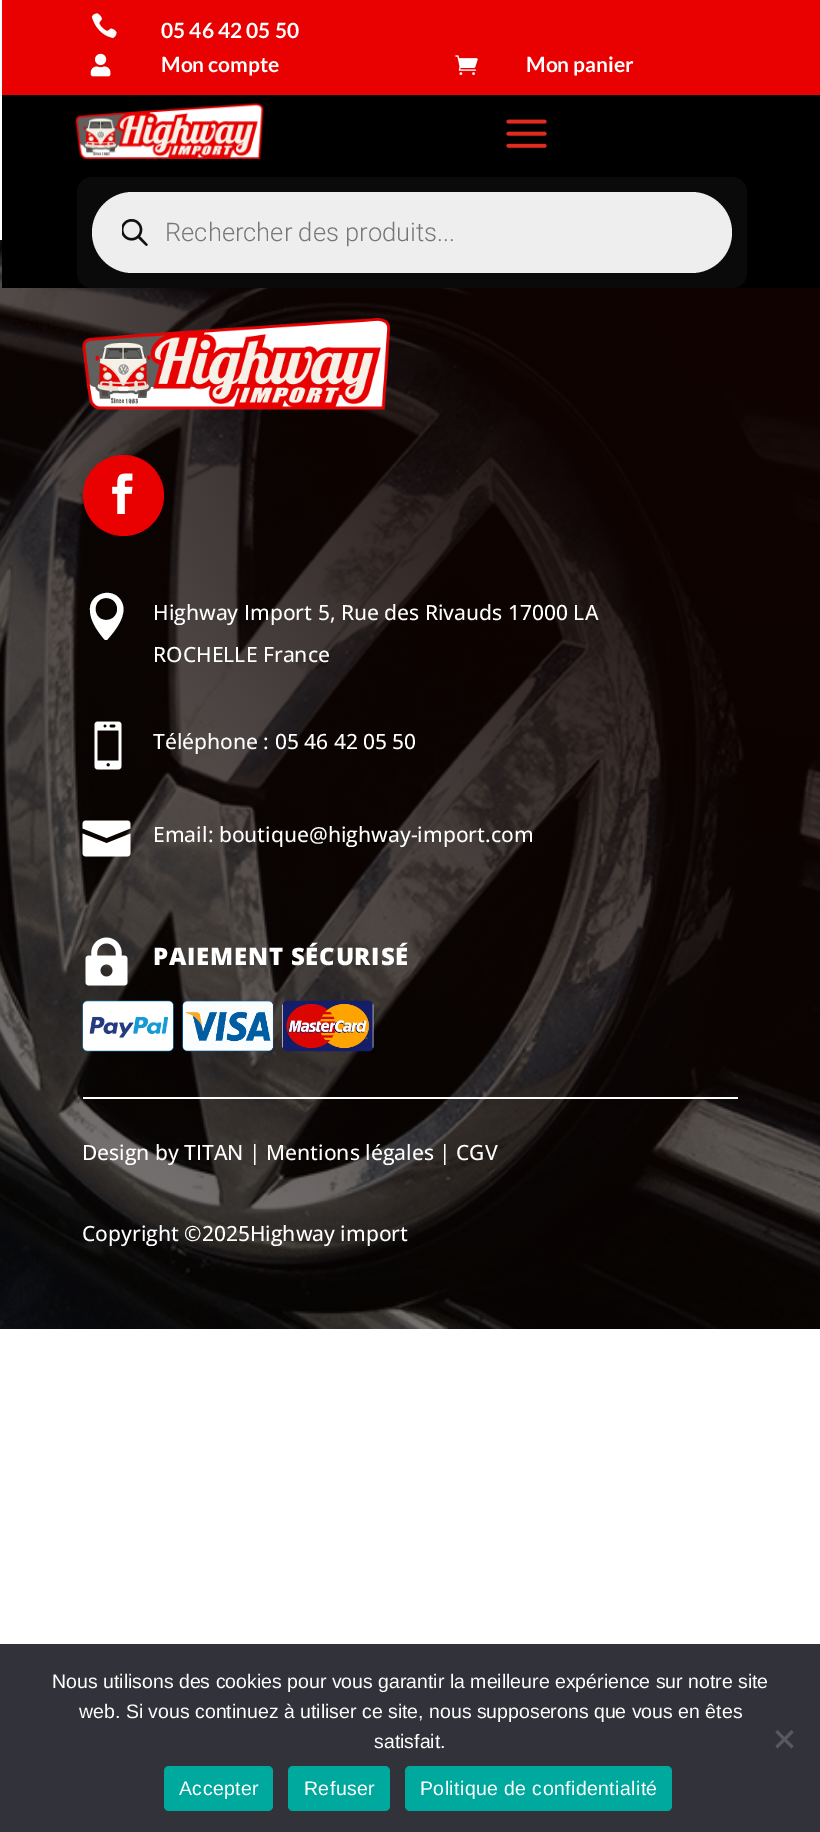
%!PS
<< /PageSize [820 1832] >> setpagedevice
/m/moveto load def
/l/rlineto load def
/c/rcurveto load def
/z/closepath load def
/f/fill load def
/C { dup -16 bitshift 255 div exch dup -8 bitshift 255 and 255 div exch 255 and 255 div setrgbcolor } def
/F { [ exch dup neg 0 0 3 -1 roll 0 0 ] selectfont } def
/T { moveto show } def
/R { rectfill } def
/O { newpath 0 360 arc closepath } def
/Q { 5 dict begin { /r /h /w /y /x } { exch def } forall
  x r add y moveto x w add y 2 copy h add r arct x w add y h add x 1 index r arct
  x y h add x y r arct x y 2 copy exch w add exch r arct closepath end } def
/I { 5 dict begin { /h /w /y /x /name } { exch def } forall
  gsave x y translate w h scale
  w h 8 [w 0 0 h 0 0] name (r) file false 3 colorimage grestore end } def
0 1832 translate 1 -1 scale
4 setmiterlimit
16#FFFFFF C
0 0 820 1832 R
(7.rgb) 0 240 820 1089 I
16#000000 C
2 95 818 193 R
16#E90000 C
2 0 818 95 R
(1.rgb) 91 13 26 26 I
/Lato-Bold 21 F
16#FFFFFF C
(05 46 42 05 50) 161 38 T
(2.rgb) 90 53 21 24 I
(Mon compte) 161 72 T
(3.rgb) 455 55 23 20 I
(Mon panier) 526 72 T
(4.rgb) 75 103 189 56 I
(5.rgb) 506 119 41 29 I
16#0A0A0A C
77 177 670 111 15 Q f
16#EEEEEE C
92 192 640 81 40.5 Q f
(6.rgb) 122 219 26 27 I
/Roboto-Light 25.5 F
16#777777 C
(Rechercher des produits...) 165 241 T
16#FFFFFF C
83 1097 655 2 R
(8.rgb) 82 318 308 92 I
16#E90000 C
123.5 495.5 40.5 O f
(9.rgb) 112 473 21 41 I
16#FFFFFF C
105 640 m 2 0 l 5 -6 l 8 -10 17 -25 7 -36 c -10 -11 -30 -3 -29 12 c 0 11 8 22 15 30 c z 106 598 m 15 0 15 22 0 22 c -14 0 -14 -22 0 -22 c z f
/OpenSans-Medium 21 F
(Highway Import 5, Rue des Rivauds 17000 LA) 153 620 T
(ROCHELLE France) 153 662 T
(10.rgb) 94 721 28 49 I
(Téléphone : 05 46 42 05 50) 153 749 T
(11.rgb) 82 820 49 37 I
(Email: boutique@highway-import.com) 153 842 T
(12.rgb) 85 937 43 49 I
/OpenSans-ExtraBold 24 F
153 965 m .75 0 (PAIEMENT SÉCURISÉ) ashow
(13.rgb) 82 1000 292 52 I
/OpenSans-Medium 21 F
(Design by TITAN | Mentions légales | CGV) 82 1160 T
(Copyright ©2025Highway import) 82 1241 T
16#32323A C
0 1644 820 188 R
/LiberationSans-Regular 19.5 F
16#FFFFFF C
(Nous utilisons des cookies pour vous garantir la meilleure expérience sur notre site) 52 1688 T
(web. Si vous continuez à utiliser ce site, nous supposerons que vous en êtes) 79 1718 T
(satisfait.) 374 1748 T
16#59595D C
791.5 1730 m 2 2.5 l -16 16 l -2 -2.5 l z f
775.5 1732.5 m 2 -2.5 l 16 16 l -2 2.5 l z f
16#00A99D C
164 1766 109 45 5 Q f
16#FFFFFF C
179 1795 m .4 0 (Accepter) ashow
16#00A99D C
288 1766 102 45 5 Q f
16#FFFFFF C
304 1795 m .4 0 (Refuser) ashow
16#00A99D C
405 1766 267 45 5 Q f
16#FFFFFF C
420 1795 m .4 0 (Politique de confidentialité) ashow
showpage
